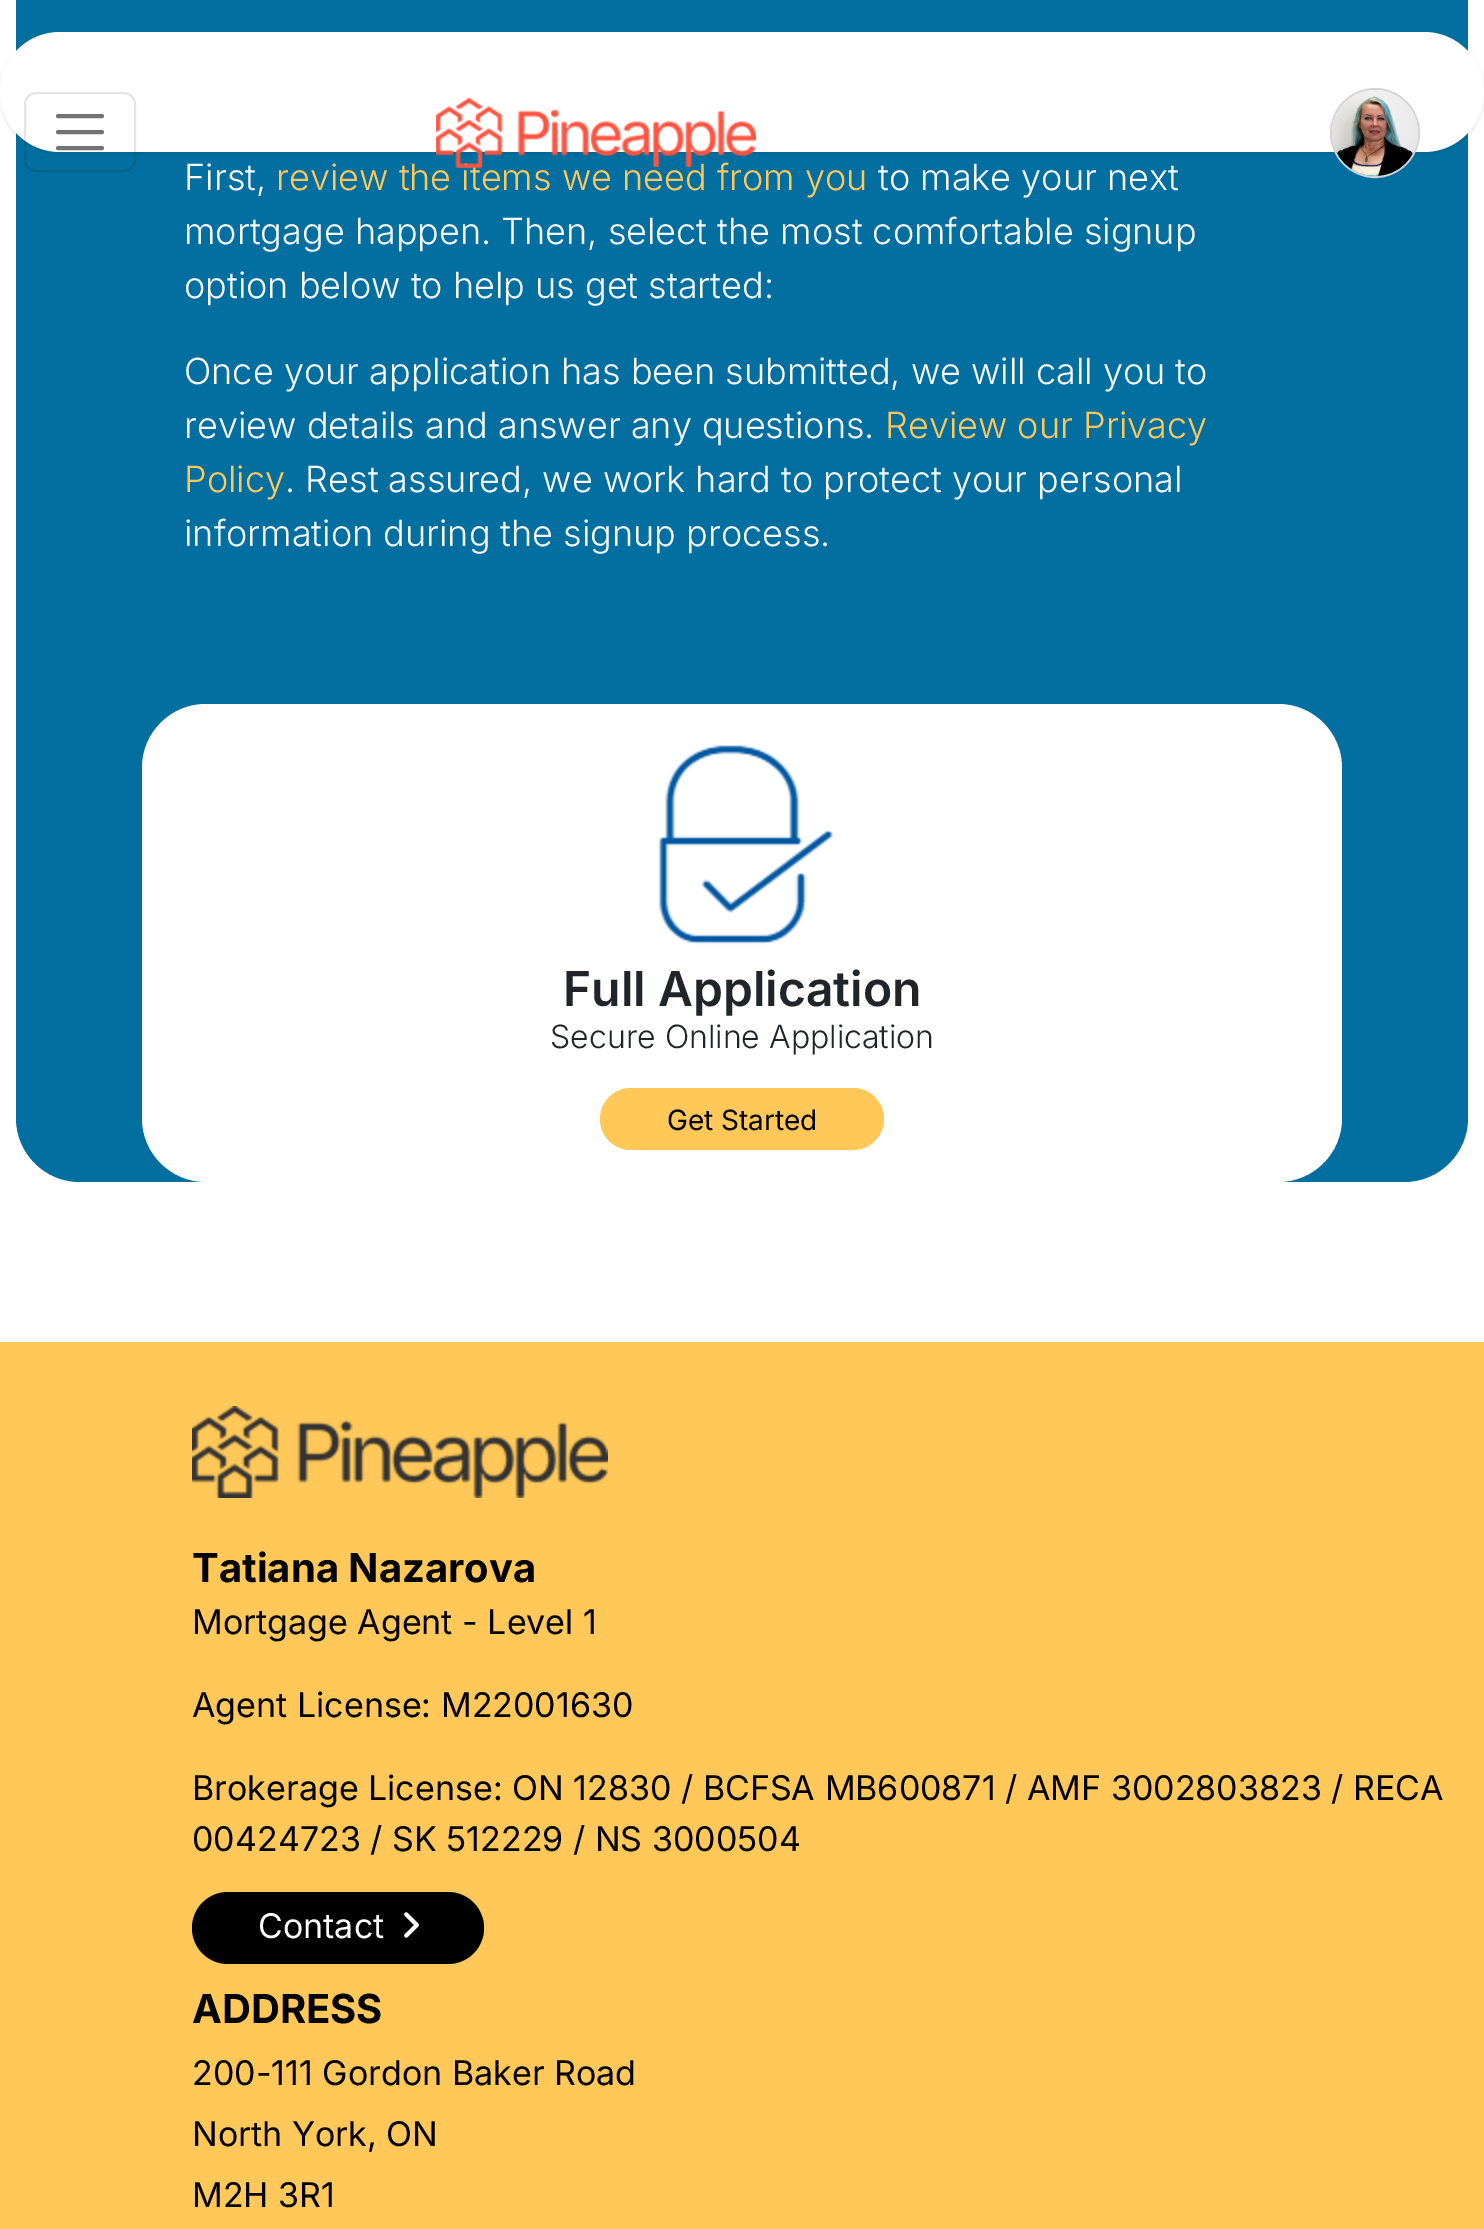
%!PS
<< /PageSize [1484 2229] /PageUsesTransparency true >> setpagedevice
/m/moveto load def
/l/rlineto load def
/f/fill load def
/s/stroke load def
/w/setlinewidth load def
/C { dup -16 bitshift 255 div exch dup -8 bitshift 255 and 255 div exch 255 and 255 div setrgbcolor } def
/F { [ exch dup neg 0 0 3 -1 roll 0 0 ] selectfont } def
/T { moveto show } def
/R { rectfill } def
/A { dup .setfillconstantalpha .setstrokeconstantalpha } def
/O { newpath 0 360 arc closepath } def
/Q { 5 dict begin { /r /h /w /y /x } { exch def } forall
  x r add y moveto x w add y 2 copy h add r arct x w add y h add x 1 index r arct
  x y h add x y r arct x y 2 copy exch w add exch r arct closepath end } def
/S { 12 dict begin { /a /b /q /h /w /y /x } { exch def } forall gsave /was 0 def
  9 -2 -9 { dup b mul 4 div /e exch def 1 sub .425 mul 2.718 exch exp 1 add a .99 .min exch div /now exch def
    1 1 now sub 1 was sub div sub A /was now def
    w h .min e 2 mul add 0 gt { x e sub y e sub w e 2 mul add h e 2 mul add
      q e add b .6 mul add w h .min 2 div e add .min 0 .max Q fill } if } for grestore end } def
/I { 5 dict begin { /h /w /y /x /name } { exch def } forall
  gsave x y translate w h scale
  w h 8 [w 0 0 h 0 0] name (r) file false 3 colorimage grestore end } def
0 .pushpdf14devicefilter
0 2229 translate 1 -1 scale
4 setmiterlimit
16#FFFFFF C
0 0 1484 2229 R
16#026FA0 C
16 -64 1452 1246 64 Q f
16#000000 C
0 34 1484 120 60 2 .1 S
16#FFFFFF C
0 32 1484 120 60 Q f
0.1 A
16#000000 C
2 w
25 93 110 78 11 Q s
1 A
16#737373 C
4 w
1 setlinecap
58 116 m 44 0 l 58 132 m 44 0 l 58 148 m 44 0 l s
/Inter-Light 36 F
16#FFC859 C
(review the items we need from you) 276 190 T
(1.rgb) 436 98 320 70 I
16#D3D3D3 C
2 w
0 setlinecap
1375 133 44 O s
(2.rgb) 1332 90 86 86 I
16#FFFFFF C
(First,) 184 190 T
(to make your next) 878 190 T
(mortgage happen. Then, select the most comfortable signup) 184 244 T
(option below to help us get started:) 184 298 T
(Once your application has been submitted, we will call you to) 184 384 T
(review details and answer any questions.) 184 438 T
16#FFC859 C
(Review our Privacy) 885 438 T
(Policy) 184 492 T
16#FFFFFF C
(. Rest assured, we work hard to protect your personal) 285 492 T
(information during the signup process.) 184 546 T
142 704 1200 478 64 Q f
(3.rgb) 658 745 176 200 I
/Inter-SemiBold 48 F
16#212529 C
(Full Application) 563 1006 T
/Inter-Light 32 F
(Secure Online Application) 550 1048 T
16#FFC859 C
600 1088 284 62 31 Q f
/Inter-Regular 28 F
16#000000 C
(Get Started) 667 1130 T
16#FFC859 C
0 1342 1484 887 R
(4.rgb) 192 1406 416 92 I
/Inter-Bold 40 F
16#000000 C
(Tatiana Nazarova) 192 1582 T
/Inter-Regular 34 F
(Mortgage Agent - Level 1) 192 1634 T
(Agent License: M22001630) 192 1717 T
(Brokerage License: ON 12830 / BCFSA MB600871 / AMF 3002803823 / RECA) 192 1800 T
(00424723 / SK 512229 / NS 3000504) 192 1851 T
192 1892 292 72 36 Q f
16#FFFFFF C
(Contact) 258 1938 T
(5.rgb) 404 1912 15 26 I
/Inter-Bold 40 F
16#000000 C
(ADDRESS) 192 2023 T
/Inter-Regular 34 F
(200-111 Gordon Baker Road) 192 2085 T
(North York, ON) 192 2146 T
(M2H 3R1) 192 2207 T
.poppdf14devicefilter showpage
